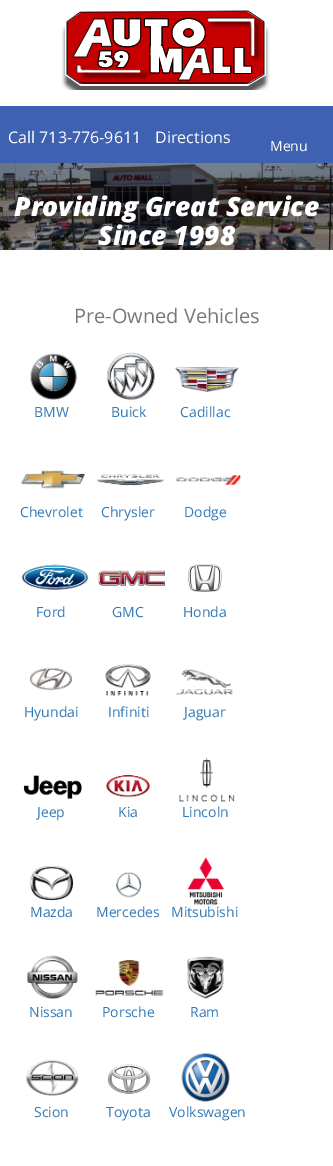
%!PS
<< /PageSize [333 1166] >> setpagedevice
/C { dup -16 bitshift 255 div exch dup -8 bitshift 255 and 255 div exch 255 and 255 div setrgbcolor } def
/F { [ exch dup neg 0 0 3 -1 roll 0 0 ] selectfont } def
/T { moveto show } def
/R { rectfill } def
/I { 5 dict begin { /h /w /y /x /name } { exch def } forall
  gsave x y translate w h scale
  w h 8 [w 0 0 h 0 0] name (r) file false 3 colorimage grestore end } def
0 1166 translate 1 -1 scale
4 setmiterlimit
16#FFFFFF C
0 0 333 1166 R
(1.rgb) 61 10 209 80 I
16#3E61B2 C
0 106 333 57 R
/OpenSans-Regular 16 F
16#FFFFFF C
(Call 713-776-9611) 8 143 T
(Directions) 155 143 T
/OpenSans-Regular 14 F
(Menu) 270 151 T
(2.rgb) 0 163 333 87 I
/OpenSans-ExtraBoldItalic 26.6 F
(Providing Great Service) 14 216 T
(Since 1998) 98 245 T
/OpenSans-Regular 20 F
16#787878 C
(Pre-Owned Vehicles) 74 323 T
(3.rgb) 29 353 48 47 I
/OpenSans-Regular 14 F
16#337AB7 C
(BMW) 34 417 T
(4.rgb) 106 352 49 48 I
(Buick) 111 417 T
(5.rgb) 175 366 64 26 I
(Cadillac) 180 417 T
(6.rgb) 21 470 65 19 I
(Chevrolet) 20 517 T
(7.rgb) 97 474 67 12 I
(Chrysler) 101 517 T
(8.rgb) 176 475 65 10 I
(Dodge) 184 517 T
(9.rgb) 21 564 67 27 I
(Ford) 36 617 T
(10.rgb) 98 570 67 16 I
(GMC) 112 617 T
(11.rgb) 188 564 34 28 I
(Honda) 183 617 T
(12.rgb) 29 667 44 24 I
(Hyundai) 24 717 T
(13.rgb) 105 664 46 32 I
(Infiniti) 108 717 T
(14.rgb) 176 669 58 26 I
(Jaguar) 184 717 T
(15.rgb) 23 775 59 24 I
(Jeep) 37 817 T
(16.rgb) 106 775 44 23 I
(Kia) 118 817 T
(17.rgb) 179 757 56 45 I
(Lincoln) 182 817 T
(18.rgb) 30 865 43 36 I
(Mazda) 30 917 T
(19.rgb) 116 872 26 26 I
(Mercedes) 96 917 T
(20.rgb) 187 857 38 49 I
(Mitsubishi) 171 917 T
(21.rgb) 27 955 51 44 I
(Nissan) 29 1017 T
(22.rgb) 95 960 69 36 I
(Porsche) 102 1017 T
(23.rgb) 187 956 37 43 I
(Ram) 190 1017 T
(24.rgb) 26 1059 53 37 I
(Scion) 34 1117 T
(25.rgb) 107 1064 44 30 I
(Toyota) 106 1117 T
(26.rgb) 181 1053 49 49 I
(Volkswagen) 169 1117 T
showpage
